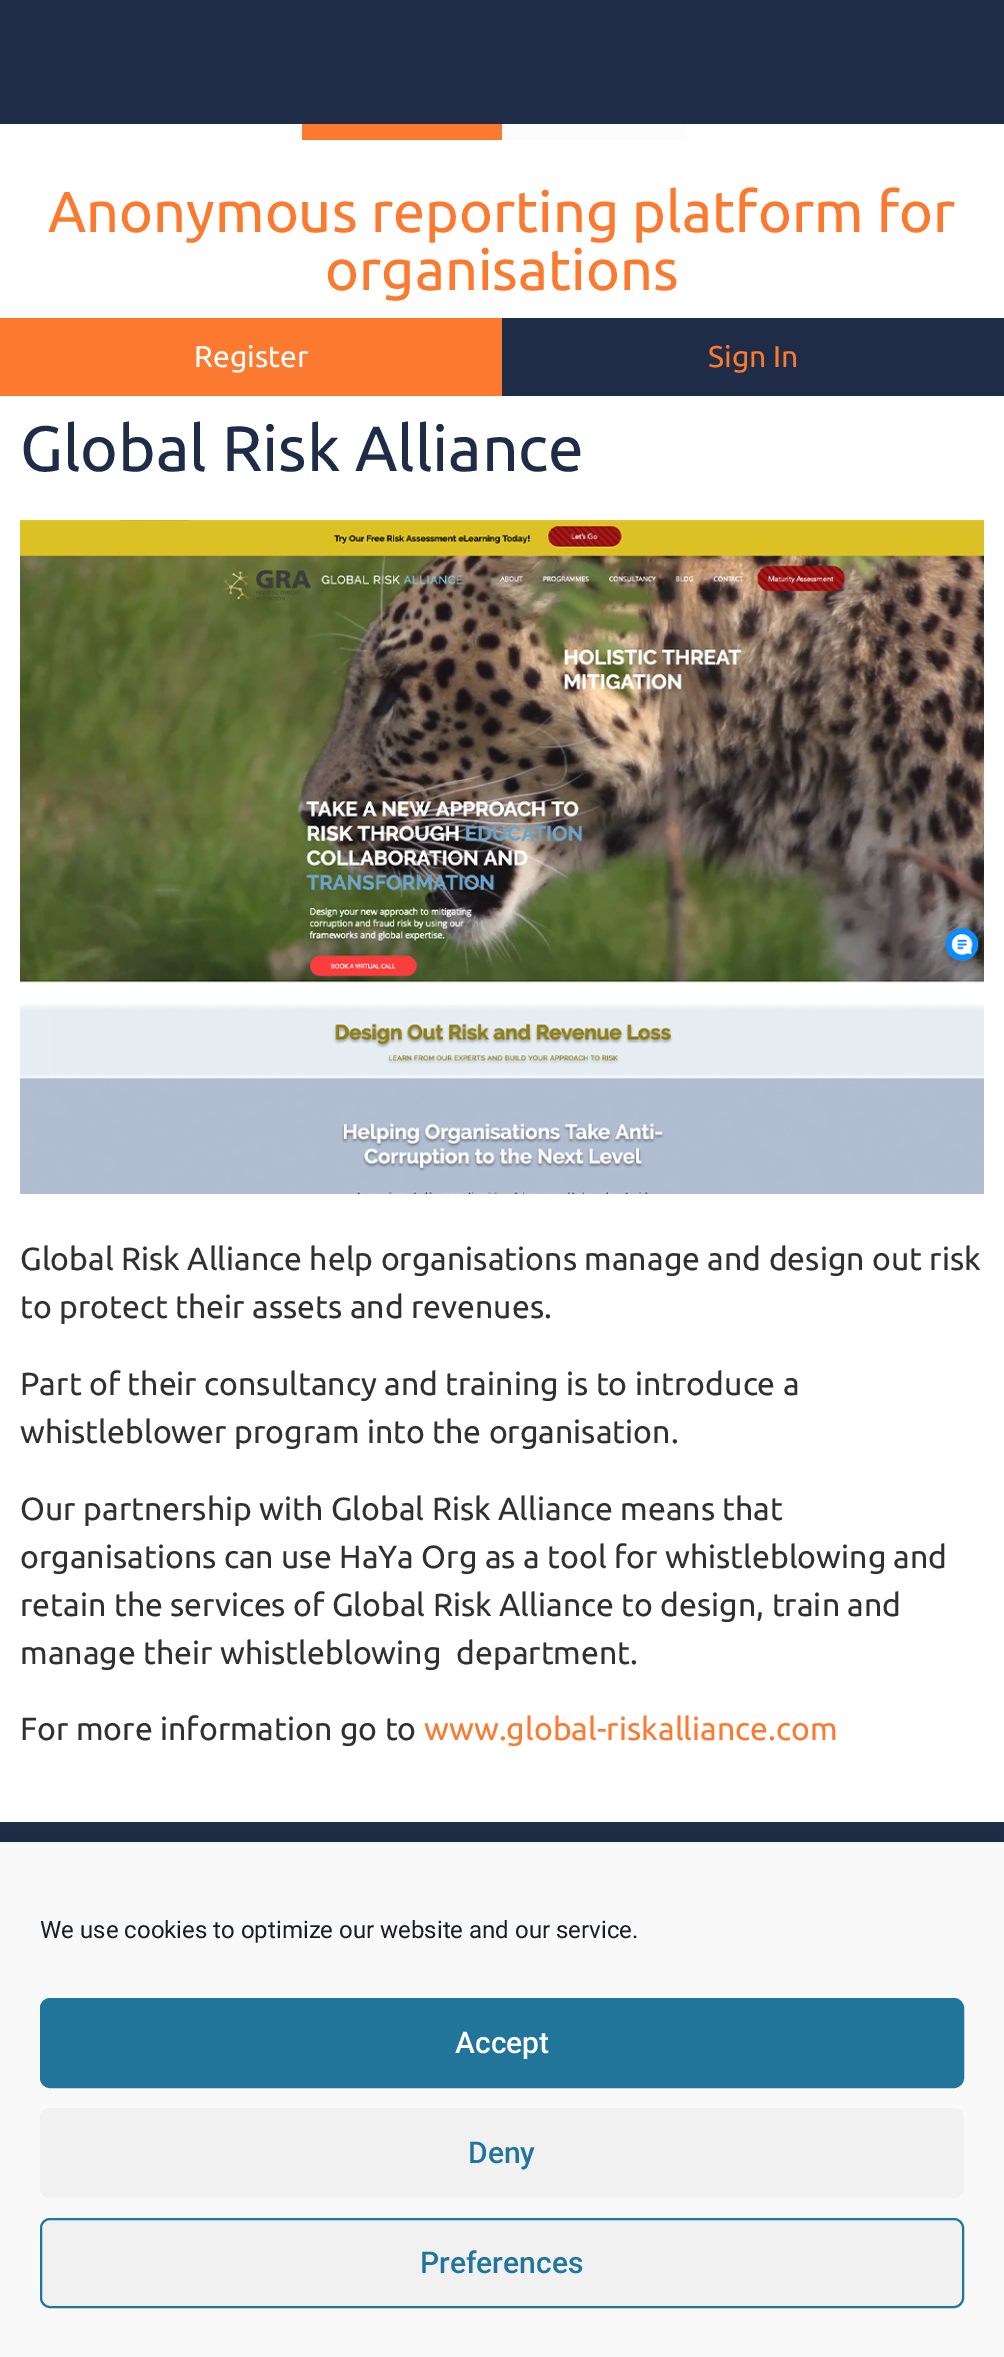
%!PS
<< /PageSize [1004 2357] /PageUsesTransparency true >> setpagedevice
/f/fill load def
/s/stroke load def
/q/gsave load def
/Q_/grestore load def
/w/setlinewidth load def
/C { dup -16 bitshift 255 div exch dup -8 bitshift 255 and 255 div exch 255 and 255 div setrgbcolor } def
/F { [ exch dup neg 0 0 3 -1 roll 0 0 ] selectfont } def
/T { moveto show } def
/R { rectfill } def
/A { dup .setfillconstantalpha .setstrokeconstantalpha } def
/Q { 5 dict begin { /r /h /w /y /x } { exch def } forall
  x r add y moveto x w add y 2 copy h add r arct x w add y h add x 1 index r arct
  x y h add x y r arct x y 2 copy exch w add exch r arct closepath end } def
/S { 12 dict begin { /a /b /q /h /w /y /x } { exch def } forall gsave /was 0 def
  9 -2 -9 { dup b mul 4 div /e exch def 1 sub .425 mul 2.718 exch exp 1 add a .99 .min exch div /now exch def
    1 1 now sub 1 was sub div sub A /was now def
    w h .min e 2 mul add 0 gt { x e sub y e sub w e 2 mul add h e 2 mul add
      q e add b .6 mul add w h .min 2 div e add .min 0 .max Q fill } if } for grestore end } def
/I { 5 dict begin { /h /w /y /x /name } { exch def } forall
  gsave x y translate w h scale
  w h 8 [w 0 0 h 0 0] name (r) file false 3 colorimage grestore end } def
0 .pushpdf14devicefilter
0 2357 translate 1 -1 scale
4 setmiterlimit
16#FFFFFF C
0 0 1004 2357 R
16#1E2C48 C
0 0 1004 124 R
(1.rgb) 302 124 383 16 I
/Ubuntu-Regular 57.6 F
16#FC7A2F C
(Anonymous reporting platform for) 48 232 T
(organisations) 325 290 T
0 318 502 78 R
/Ubuntu-Regular 30 F
16#FFFFFF C
(Register) 194 367 T
16#1E2C48 C
502 318 502 78 R
16#FC7A2F C
(Sign In) 708 367 T
/Ubuntu-Regular 64 F
16#1E2C48 C
(Global Risk Alliance) 20 471 T
(2.rgb) 20 520 964 674 I
/Ubuntu-Regular 32 F
16#303030 C
(Global Risk Alliance help organisations manage and design out risk) 20 1270 T
(to protect their assets and revenues.) 20 1318 T
(Part of their consultancy and training is to introduce a) 20 1395 T
(whistleblower program into the organisation.) 20 1443 T
(Our partnership with Global Risk Alliance means that) 20 1520 T
(organisations can use HaYa Org as a tool for whistleblowing and) 20 1568 T
(retain the services of Global Risk Alliance to design, train and) 20 1616 T
(manage their whistleblowing  department.) 20 1664 T
(For more information go to) 20 1740 T
16#FC7A2F C
(www.global-riskalliance.com) 424 1740 T
16#1E2C48 C
0 1822 1004 20 R
16#000000 C
0 1862 1004 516 0 20 .19 S
16#F9F9F9 C
0 1844 1004 513 R
/Roboto-Regular 24 F
16#191E23 C
(We use cookies to optimize our website and our service.) 40 1938 T
16#21759B C
41 1999 922 88 9 Q q f Q_
2 w
s
/Roboto-Medium 30 F
16#FFFFFF C
(Accept) 455 2053 T
16#F1F1F1 C
40 2108 924 90 10 Q f
16#21759B C
(Deny) 468 2163 T
16#F1F1F1 C
41 2219 922 88 9 Q q f Q_
16#21759B C
s
(Preferences) 420 2273 T
.poppdf14devicefilter showpage
